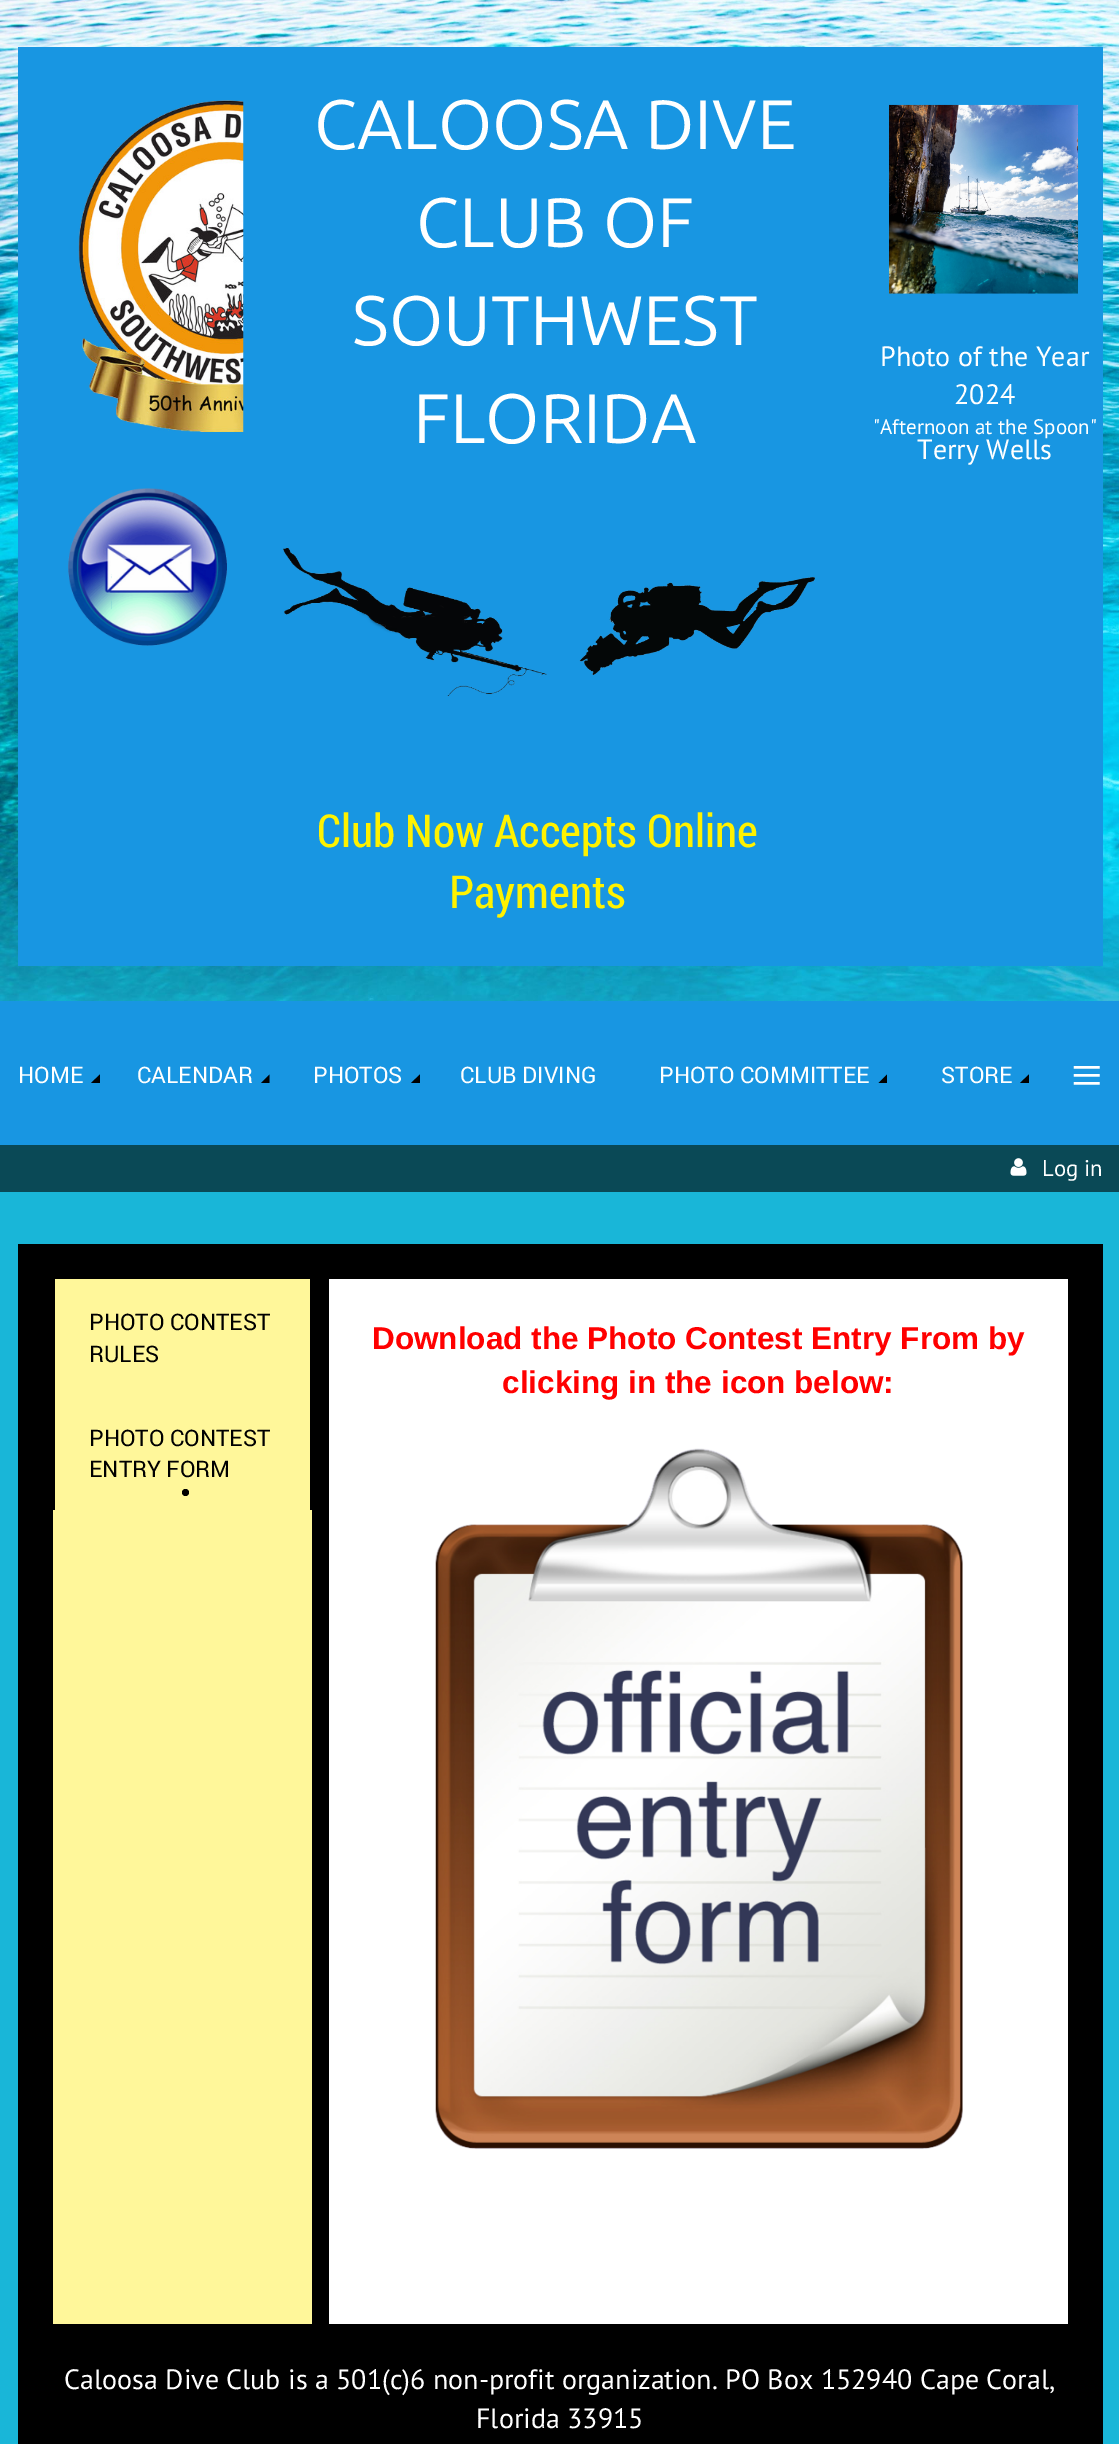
%!PS
<< /PageSize [1119 2444] >> setpagedevice
/m/moveto load def
/l/rlineto load def
/z/closepath load def
/f/fill load def
/C { dup -16 bitshift 255 div exch dup -8 bitshift 255 and 255 div exch 255 and 255 div setrgbcolor } def
/F { [ exch dup neg 0 0 3 -1 roll 0 0 ] selectfont } def
/T { moveto show } def
/R { rectfill } def
/O { newpath 0 360 arc closepath } def
/I { 5 dict begin { /h /w /y /x /name } { exch def } forall
  gsave x y translate w h scale
  w h 8 [w 0 0 h 0 0] name (r) file false 3 colorimage grestore end } def
0 2444 translate 1 -1 scale
4 setmiterlimit
16#19B6D8 C
0 0 1119 2444 R
(1.rgb) 0 0 1119 1001 I
16#1896E2 C
18 47 1085 919 R
(2.rgb) 78 100 166 332 I
(3.rgb) 68 488 159 158 I
/Ubuntu-Regular 70 F
16#FFFFFF C
(CALOOSA DIVE) 314 149 T
(CLUB OF) 416 247 T
(SOUTHWEST) 352 345 T
(FLORIDA) 413 443 T
(4.rgb) 283 547 532 150 I
/RobotoCondensed-Regular 45.5 F
16#FFF200 C
(Club Now Accepts Online) 317 847 T
(Payments) 449 908 T
(5.rgb) 889 104 189 190 I
/PTSans-Regular 28 F
16#FFFFFF C
(Photo of the Year) 880 366 T
(2024) 954 404 T
/PTSans-Regular 21 F
("Afternoon at the Spoon") 873 434 T
/PTSans-Regular 28 F
(Terry Wells) 917 459 T
16#1896E2 C
0 1001 1119 144 R
/Roboto-Regular 22.75 F
16#FFFFFF C
(HOME) 18 1083 T
16#000000 C
100 1083 m -9 0 l 9 -8.5 l z f
16#FFFFFF C
(CALENDAR) 137 1083 T
16#000000 C
269.5 1083 m -8.5 0 l 8.5 -8.5 l z f
16#FFFFFF C
(PHOTOS) 313 1083 T
16#000000 C
420 1083 m -9 0 l 9 -8.5 l z f
16#FFFFFF C
(CLUB DIVING) 460 1083 T
(PHOTO COMMITTEE) 659 1083 T
16#000000 C
887 1083 m -8.5 0 l 8.5 -8.5 l z f
16#FFFFFF C
(STORE) 941 1083 T
16#000000 C
1029 1083 m -9 0 l 9 -8.5 l z f
/LiberationSerif-Regular 56 F
16#FFFFFF C
(≡) 1071 1094 T
16#0A4956 C
0 1145 1119 47 R
(6.rgb) 1010 1158 17 18 I
/PTSans-Regular 22.75 F
16#FFFFFF C
(Log in) 1042 1176 T
16#000000 C
18 1244 1085 1200 R
16#FFF79A C
53 1279 259 1045 R
16#000000 C
310 1279 2 231 R
53 1279 2 231 R
/Roboto-Regular 22.75 F
(PHOTO CONTEST) 89 1330 T
(RULES) 89 1362 T
(PHOTO CONTEST) 89 1446 T
(ENTRY FORM) 89 1477 T
185.5 1492.5 3.5 O f
16#FFFFFF C
329 1279 739 1045 R
/LiberationSans-Bold 31.5 F
16#FF0000 C
(Download the Photo Contest Entry From by) 372 1349 T
(clicking in the icon below:) 502 1393 T
(7.rgb) 435 1448 528 701 I
/PTSans-Regular 28 F
16#FFFFFF C
(Caloosa Dive Club is a 501\(c\)6 non-profit organization. PO Box 152940 Cape Coral,) 64 2389 T
(Florida 33915) 476 2428 T
showpage
